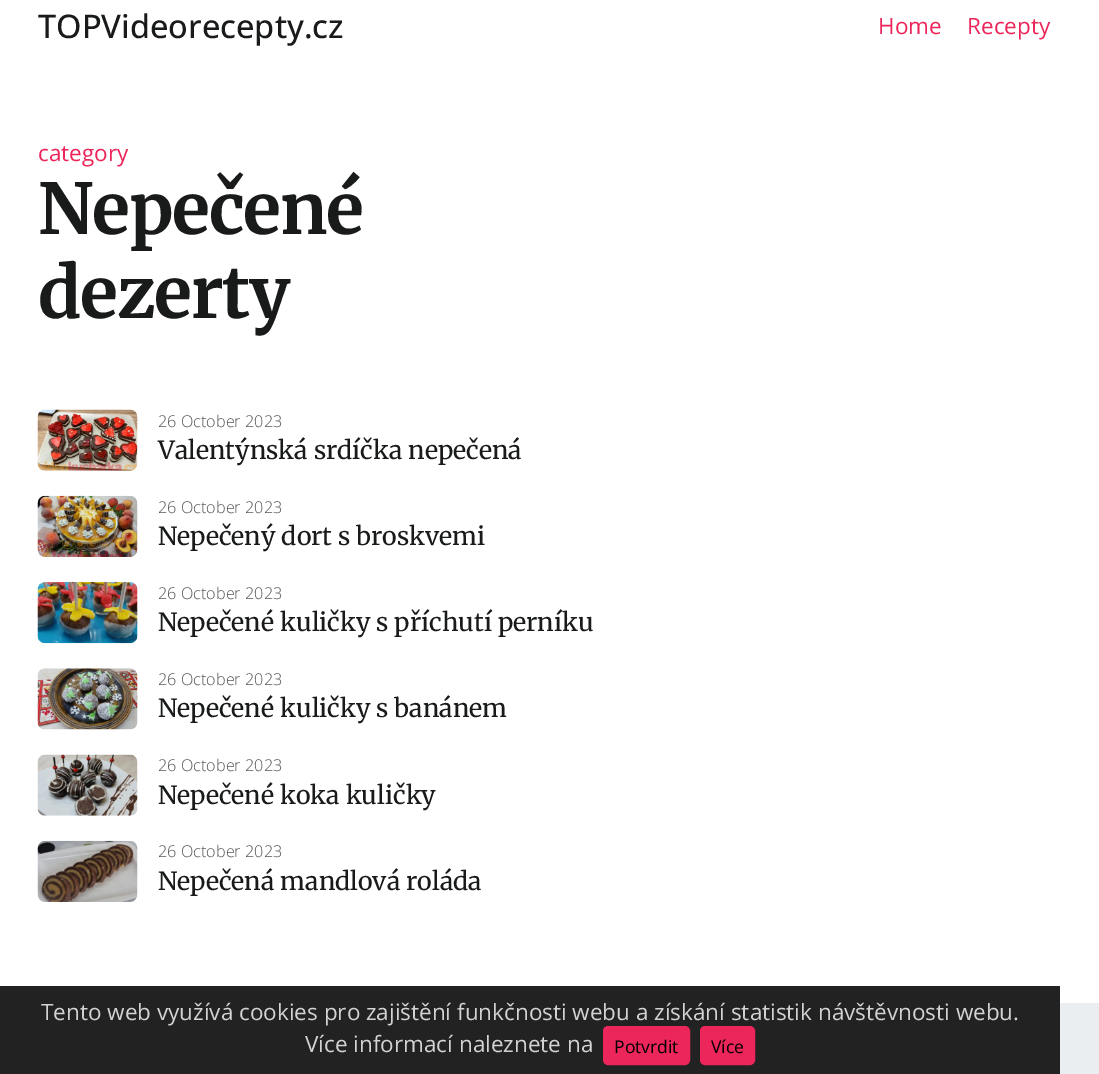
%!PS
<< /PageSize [1099 1074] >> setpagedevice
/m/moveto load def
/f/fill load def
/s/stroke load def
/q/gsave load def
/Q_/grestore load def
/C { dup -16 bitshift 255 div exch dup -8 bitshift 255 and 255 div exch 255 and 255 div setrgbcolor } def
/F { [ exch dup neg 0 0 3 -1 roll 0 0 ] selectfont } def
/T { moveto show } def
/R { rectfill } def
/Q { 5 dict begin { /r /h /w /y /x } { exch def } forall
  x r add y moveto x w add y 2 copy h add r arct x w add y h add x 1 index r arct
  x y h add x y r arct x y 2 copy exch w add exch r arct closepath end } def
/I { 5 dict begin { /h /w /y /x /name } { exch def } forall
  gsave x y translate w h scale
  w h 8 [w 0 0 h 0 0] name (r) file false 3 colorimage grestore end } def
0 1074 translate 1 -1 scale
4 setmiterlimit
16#FFFFFF C
0 0 1099 1074 R
/OpenSans-Medium 32.5 F
16#191A1A C
(TOPVideorecepty.cz) 38 38 T
/OpenSans-Regular 22.5 F
16#EC255A C
(Home) 878 34 T
(Recepty) 967 34 T
(category) 38 161 T
/Merriweather-Bold 70 F
16#191A1A C
38 234 m -1.25 0 (Nepečené) ashow
38 318 m -1.25 0 (dezerty) ashow
(1.rgb) 37 409 101 62 I
/OpenSans-Light 16.25 F
16#555555 C
(26 October 2023) 158 427 T
/Merriweather-Regular 25 F
16#191A1A C
(Valentýnská srdíčka nepečená) 158 459 T
(2.rgb) 37 495 101 62 I
/OpenSans-Light 16.25 F
16#555555 C
(26 October 2023) 158 513 T
/Merriweather-Regular 25 F
16#191A1A C
(Nepečený dort s broskvemi) 158 545 T
(3.rgb) 37 582 101 62 I
/OpenSans-Light 16.25 F
16#555555 C
(26 October 2023) 158 599 T
/Merriweather-Regular 25 F
16#191A1A C
(Nepečené kuličky s příchutí perníku) 158 631 T
(4.rgb) 37 668 101 62 I
/OpenSans-Light 16.25 F
16#555555 C
(26 October 2023) 158 685 T
/Merriweather-Regular 25 F
16#191A1A C
(Nepečené kuličky s banánem) 158 717 T
(5.rgb) 37 754 101 62 I
/OpenSans-Light 16.25 F
16#555555 C
(26 October 2023) 158 771 T
/Merriweather-Regular 25 F
16#191A1A C
(Nepečené koka kuličky) 158 804 T
(6.rgb) 37 840 101 62 I
/OpenSans-Light 16.25 F
16#555555 C
(26 October 2023) 158 857 T
/Merriweather-Regular 25 F
16#191A1A C
(Nepečená mandlová roláda) 158 890 T
16#222222 C
0 986 1060 88 R
/OpenSans-Regular 22.5 F
16#D3D3D3 C
(Tento web využívá cookies pro zajištění funkčnosti webu a získání statistik návštěvnosti webu.) 41 1020 T
(Více informací naleznete na) 305 1052 T
16#EC255A C
603.5 1026.5 86 38 4.5 Q q f Q_
s
/OpenSans-Regular 17.5 F
16#000000 C
(Potvrdit) 614 1053 T
16#EC255A C
700.5 1026.5 54 38 4.5 Q q f Q_
s
16#000000 C
(Více) 711 1053 T
16#EBEEF0 C
1060 1003 39 71 R
showpage
